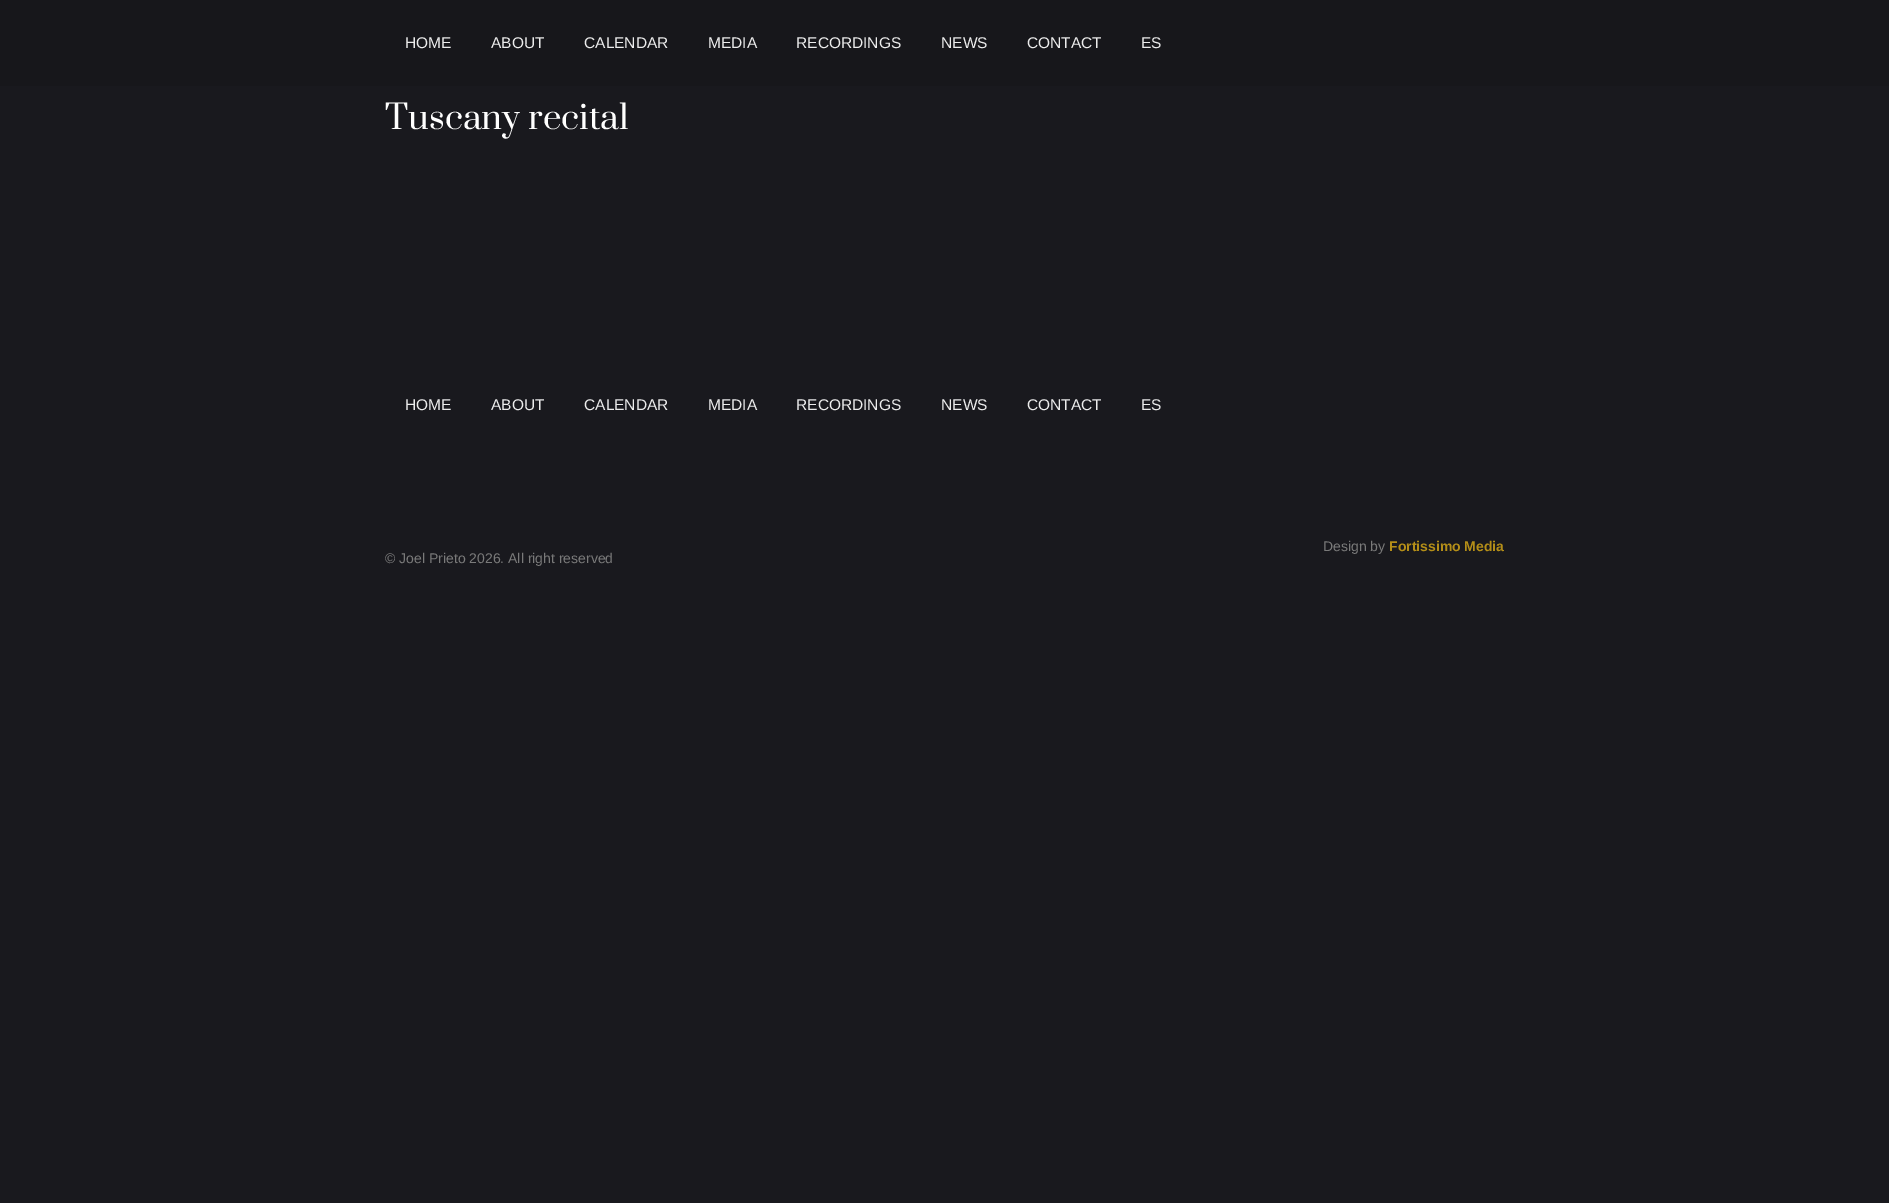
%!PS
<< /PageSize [1889 1203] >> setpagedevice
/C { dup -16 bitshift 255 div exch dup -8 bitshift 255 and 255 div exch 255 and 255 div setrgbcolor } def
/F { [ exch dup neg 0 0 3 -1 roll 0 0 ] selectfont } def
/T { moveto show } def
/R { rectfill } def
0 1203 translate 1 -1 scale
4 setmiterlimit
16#19191E C
0 0 1889 1203 R
16#17171B C
0 0 1889 86 R
/LiberationSans-Regular 15.5 F
16#ECECEC C
(HOME) 405 48 T
(ABOUT) 491 48 T
(CALENDAR) 584 48 T
(MEDIA) 708 48 T
(RECORDINGS) 796 48 T
(NEWS) 941 48 T
(CONTACT) 1027 48 T
(ES) 1141 48 T
/Prata-Regular 33 F
16#FFFFFF C
(Tuscany recital) 385 129 T
/LiberationSans-Regular 15.5 F
16#ECECEC C
(HOME) 405 410 T
(ABOUT) 491 410 T
(CALENDAR) 584 410 T
(MEDIA) 708 410 T
(RECORDINGS) 796 410 T
(NEWS) 941 410 T
(CONTACT) 1027 410 T
(ES) 1141 410 T
/LiberationSans-Regular 14 F
16#7A7A7A C
(Design by) 1323 551 T
/LiberationSans-Bold 14 F
16#B48E18 C
(Fortissimo Media) 1389 551 T
/LiberationSans-Regular 14 F
16#7A7A7A C
(© Joel Prieto 2026. All right reserved) 385 563 T
showpage
